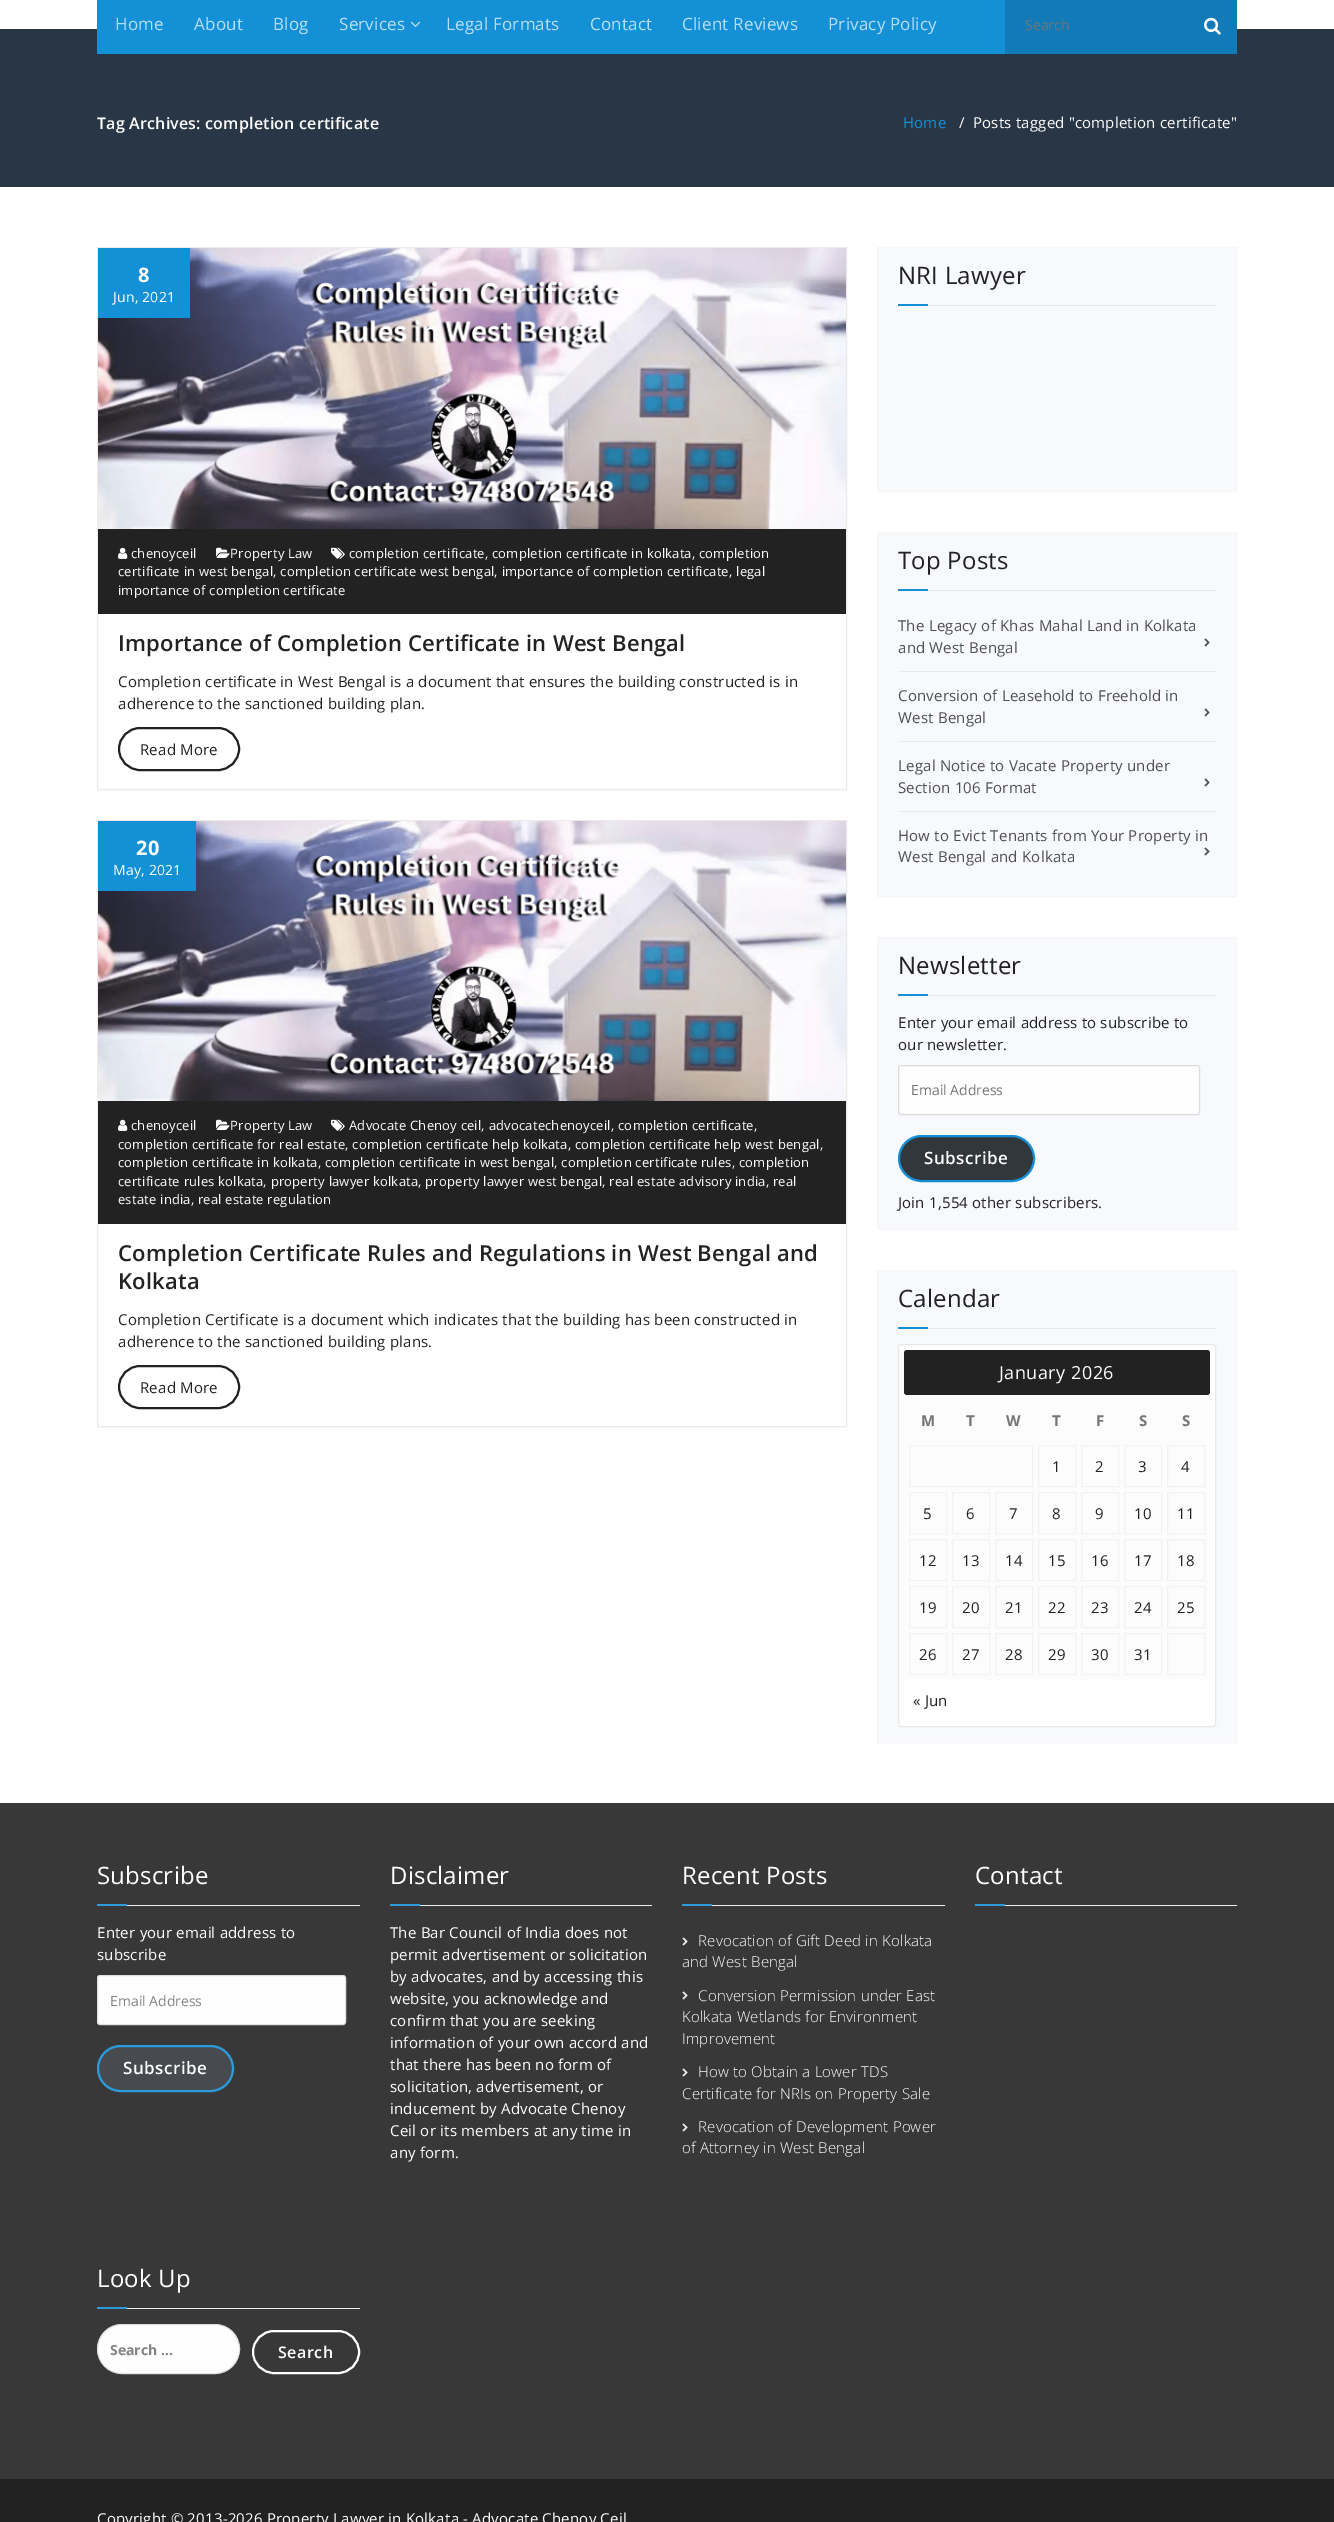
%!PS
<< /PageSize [1334 2522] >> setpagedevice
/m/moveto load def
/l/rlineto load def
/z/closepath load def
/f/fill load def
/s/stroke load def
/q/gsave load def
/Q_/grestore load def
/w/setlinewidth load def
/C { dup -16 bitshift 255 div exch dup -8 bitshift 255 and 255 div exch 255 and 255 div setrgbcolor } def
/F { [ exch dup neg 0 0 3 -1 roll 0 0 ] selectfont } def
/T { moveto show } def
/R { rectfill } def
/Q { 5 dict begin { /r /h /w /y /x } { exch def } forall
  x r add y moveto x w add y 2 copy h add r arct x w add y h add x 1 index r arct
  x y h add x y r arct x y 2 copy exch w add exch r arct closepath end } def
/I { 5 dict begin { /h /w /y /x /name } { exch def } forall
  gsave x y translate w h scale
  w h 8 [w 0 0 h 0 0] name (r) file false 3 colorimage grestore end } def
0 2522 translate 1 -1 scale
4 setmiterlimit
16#FFFFFF C
0 0 1334 2522 R
16#283645 C
0 29 1334 158 R
16#1490D7 C
97 0 908 54 R
/OpenSans-Regular 17 F
16#B9DEF3 C
115 30 m .2 0 (Home) ashow
194 30 m .2 0 (About) ashow
273 30 m .2 0 (Blog) ashow
339 30 m .2 0 (Services) ashow
(1.rgb) 410 21 11 7 I
446 30 m .2 0 (Legal Formats) ashow
590 30 m .2 0 (Contact) ashow
682 30 m .2 0 (Client Reviews) ashow
828 30 m .2 0 (Privacy Policy) ashow
16#117AB7 C
1005 0 232 54 R
/OpenSans-Regular 14 F
16#757575 C
(Search) 1025 30 T
(2.rgb) 1204 17 17 18 I
/OpenSans-SemiBold 16 F
16#FFFFFF C
97 129 m .2 0 (Tag Archives: completion certificate) ashow
/OpenSans-Regular 15 F
16#1490D7 C
903 128 m .2 0 (Home) ashow
16#FFFFFF C
959 128 m .2 0 (/) ashow
973 128 m .2 0 (Posts tagged "completion certificate") ashow
16#EFE9E9 C
97.5 247.5 749 542 rectstroke
(3.rgb) 98 248 748 281 I
16#1490D7 C
98 248 92 70 R
/OpenSans-Bold 20 F
16#FFFFFF C
138 282 m .2 0 (8) ashow
/OpenSans-Regular 14 F
113 302 m .2 0 (Jun, 2021) ashow
16#222222 C
98 529 748 85 R
(4.rgb) 331 547 14 12 I
/OpenSans-Regular 13 F
16#FFFFFF C
349 558 m .2 0 (completion certificate, completion certificate in kolkata, completion) ashow
118 576 m .2 0 (certificate in west bengal, completion certificate west bengal, importance of completion certificate, legal) ashow
118 595 m .2 0 (importance of completion certificate) ashow
(5.rgb) 118 547 10 12 I
131 558 m .2 0 (chenoyceil) ashow
(6.rgb) 216 547 14 11 I
230 558 m .2 0 (Property Law) ashow
/OpenSans-SemiBold 22 F
16#222222 C
118 651 m .2 0 (Importance of Completion Certificate in West Bengal) ashow
/OpenSans-Regular 15 F
118 687 m .2 0 (Completion certificate in West Bengal is a document that ensures the building constructed is in) ashow
118 709 m .2 0 (adherence to the sanctioned building plan.) ashow
2 w
119 728 120 42 21 Q s
140 755 m .2 0 (Read More) ashow
16#EFE9E9 C
1 w
97.5 820.5 749 606 rectstroke
(7.rgb) 98 821 748 280 I
16#1490D7 C
98 821 98 70 R
/OpenSans-Bold 20 F
16#FFFFFF C
136 855 m .2 0 (20) ashow
/OpenSans-Regular 14 F
113 875 m .2 0 (May, 2021) ashow
16#222222 C
98 1101 748 123 R
(4.rgb) 331 1119 14 12 I
/OpenSans-Regular 13 F
16#FFFFFF C
349 1130 m .2 0 (Advocate Chenoy ceil, advocatechenoyceil, completion certificate,) ashow
118 1149 m .2 0 (completion certificate for real estate, completion certificate help kolkata, completion certificate help west bengal,) ashow
118 1167 m .2 0 (completion certificate in kolkata, completion certificate in west bengal, completion certificate rules, completion) ashow
118 1186 m .2 0 (certificate rules kolkata, property lawyer kolkata, property lawyer west bengal, real estate advisory india, real) ashow
118 1204 m .2 0 (estate india, real estate regulation) ashow
(5.rgb) 118 1119 10 12 I
131 1130 m .2 0 (chenoyceil) ashow
(6.rgb) 216 1119 14 11 I
230 1130 m .2 0 (Property Law) ashow
/OpenSans-SemiBold 22 F
16#222222 C
118 1261 m .2 0 (Completion Certificate Rules and Regulations in West Bengal and) ashow
118 1289 m .2 0 (Kolkata) ashow
/OpenSans-Regular 15 F
118 1325 m .2 0 (Completion Certificate is a document which indicates that the building has been constructed in) ashow
118 1347 m .2 0 (adherence to the sanctioned building plans.) ashow
2 w
119 1366 120 42 21 Q s
140 1393 m .2 0 (Read More) ashow
16#F7F9FC C
877.5 247.5 m 359 0 l 0 244 l -359 0 l z q f Q_
16#F6F6F6 C
1 w
s
16#E7EAF1 C
928 305 288 1 R
/OpenSans-Regular 24 F
16#222222 C
898 284 m .2 0 (NRI Lawyer) ashow
16#1490D7 C
898 304 30 2 R
16#F7F9FC C
877.5 532.5 m 359 0 l 0 364 l -359 0 l z q f Q_
16#F6F6F6 C
s
16#E7EAF1 C
928 590 288 1 R
16#222222 C
898 569 m .2 0 (Top Posts) ashow
16#1490D7 C
898 589 30 2 R
16#E7EAF1 C
898 671 318 1 R
/OpenSans-Regular 15 F
16#505050 C
898 631 m .2 0 (The Legacy of Khas Mahal Land in Kolkata) ashow
898 653 m .2 0 (and West Bengal) ashow
(8.rgb) 1204 638 6 9 I
16#E7EAF1 C
898 741 318 1 R
16#505050 C
898 701 m .2 0 (Conversion of Leasehold to Freehold in) ashow
898 723 m .2 0 (West Bengal) ashow
(8.rgb) 1204 708 6 9 I
16#E7EAF1 C
898 811 318 1 R
16#505050 C
898 771 m .2 0 (Legal Notice to Vacate Property under) ashow
898 793 m .2 0 (Section 106 Format) ashow
(8.rgb) 1204 778 6 9 I
898 841 m .2 0 (How to Evict Tenants from Your Property in) ashow
898 862 m .2 0 (West Bengal and Kolkata) ashow
(8.rgb) 1204 847 6 9 I
16#F7F9FC C
877.5 937.5 m 359 0 l 0 292 l -359 0 l z q f Q_
16#F6F6F6 C
s
16#E7EAF1 C
928 995 288 1 R
/OpenSans-Regular 24 F
16#222222 C
898 974 m .2 0 (Newsletter) ashow
16#1490D7 C
898 994 30 2 R
/OpenSans-Regular 15 F
16#222222 C
898 1028 m .2 0 (Enter your email address to subscribe to) ashow
898 1050 m .2 0 (our newsletter.) ashow
16#FEFEFE C
898.5 1065.5 301 49 2.5 Q q f Q_
16#DCDCDC C
s
/OpenSans-Regular 14 F
16#757575 C
(Email Address) 911 1095 T
16#32373C C
899 1136 135 45 22.5 Q q f Q_
16#1490D7 C
2 w
s
/OpenSans-SemiBold 17 F
16#FFFFFF C
924 1164 m .5 0 (Subscribe) ashow
/OpenSans-Regular 15 F
16#222222 C
898 1208 m .2 0 (Join 1,554 other subscribers.) ashow
16#F7F9FC C
877.5 1270.5 m 359 0 l 0 472 l -359 0 l z q f Q_
16#F6F6F6 C
1 w
s
16#E7EAF1 C
928 1328 288 1 R
/OpenSans-Regular 24 F
16#222222 C
898 1307 m .2 0 (Calendar) ashow
16#1490D7 C
898 1327 30 2 R
16#FFFFFF C
898.5 1344.5 317 382 2.5 Q q f Q_
16#EAE7E4 C
s
16#FCFCFC C
904 1350 306 330 R
16#222222 C
904 1350 306 45 3 Q f
/OpenSans-Regular 18 F
16#FFFFFF C
999 1379 m .5 0 (January 2026) ashow
/OpenSans-Bold 15 F
16#757575 C
921 1426 m .5 0 (M) ashow
966 1426 m .5 0 (T) ashow
1006 1426 m .5 0 (W) ashow
1052 1426 m .5 0 (T) ashow
1096 1426 m .5 0 (F) ashow
1139 1426 m .5 0 (S) ashow
1182 1426 m .5 0 (S) ashow
16#F2F2F2 C
909.5 1445.5 123 41 rectstroke
1038.5 1445.5 37 41 rectstroke
/OpenSans-Regular 15 F
16#222222 C
1052 1472 m .5 0 (1) ashow
16#F2F2F2 C
1081.5 1445.5 37 41 rectstroke
16#222222 C
1095 1472 m .5 0 (2) ashow
16#F2F2F2 C
1124.5 1445.5 37 41 rectstroke
16#222222 C
1138 1472 m .5 0 (3) ashow
16#F2F2F2 C
1167.5 1445.5 37 41 rectstroke
16#222222 C
1181 1472 m .5 0 (4) ashow
16#F2F2F2 C
909.5 1492.5 37 41 rectstroke
16#222222 C
923 1519 m .5 0 (5) ashow
16#F2F2F2 C
952.5 1492.5 37 41 rectstroke
16#222222 C
966 1519 m .5 0 (6) ashow
16#F2F2F2 C
995.5 1492.5 37 41 rectstroke
16#222222 C
1009 1519 m .5 0 (7) ashow
16#F2F2F2 C
1038.5 1492.5 37 41 rectstroke
16#222222 C
1052 1519 m .5 0 (8) ashow
16#F2F2F2 C
1081.5 1492.5 37 41 rectstroke
16#222222 C
1095 1519 m .5 0 (9) ashow
16#F2F2F2 C
1124.5 1492.5 37 41 rectstroke
16#222222 C
1134 1519 m .5 0 (10) ashow
16#F2F2F2 C
1167.5 1492.5 37 41 rectstroke
16#222222 C
1177 1519 m .5 0 (11) ashow
16#F2F2F2 C
909.5 1539.5 37 41 rectstroke
16#222222 C
919 1566 m .5 0 (12) ashow
16#F2F2F2 C
952.5 1539.5 37 41 rectstroke
16#222222 C
962 1566 m .5 0 (13) ashow
16#F2F2F2 C
995.5 1539.5 37 41 rectstroke
16#222222 C
1005 1566 m .5 0 (14) ashow
16#F2F2F2 C
1038.5 1539.5 37 41 rectstroke
16#222222 C
1048 1566 m .5 0 (15) ashow
16#F2F2F2 C
1081.5 1539.5 37 41 rectstroke
16#222222 C
1091 1566 m .5 0 (16) ashow
16#F2F2F2 C
1124.5 1539.5 37 41 rectstroke
16#222222 C
1134 1566 m .5 0 (17) ashow
16#F2F2F2 C
1167.5 1539.5 37 41 rectstroke
16#222222 C
1177 1566 m .5 0 (18) ashow
16#F2F2F2 C
909.5 1586.5 37 41 rectstroke
16#222222 C
919 1613 m .5 0 (19) ashow
16#F2F2F2 C
952.5 1586.5 37 41 rectstroke
16#222222 C
962 1613 m .5 0 (20) ashow
16#F2F2F2 C
995.5 1586.5 37 41 rectstroke
16#222222 C
1005 1613 m .5 0 (21) ashow
16#F2F2F2 C
1038.5 1586.5 37 41 rectstroke
16#222222 C
1048 1613 m .5 0 (22) ashow
16#F2F2F2 C
1081.5 1586.5 37 41 rectstroke
16#222222 C
1091 1613 m .5 0 (23) ashow
16#F2F2F2 C
1124.5 1586.5 37 41 rectstroke
16#222222 C
1134 1613 m .5 0 (24) ashow
16#F2F2F2 C
1167.5 1586.5 37 41 rectstroke
16#222222 C
1177 1613 m .5 0 (25) ashow
16#F2F2F2 C
909.5 1633.5 37 41 rectstroke
16#222222 C
919 1660 m .5 0 (26) ashow
16#F2F2F2 C
952.5 1633.5 37 41 rectstroke
16#222222 C
962 1660 m .5 0 (27) ashow
16#F2F2F2 C
995.5 1633.5 37 41 rectstroke
16#222222 C
1005 1660 m .5 0 (28) ashow
16#F2F2F2 C
1038.5 1633.5 37 41 rectstroke
16#222222 C
1048 1660 m .5 0 (29) ashow
16#F2F2F2 C
1081.5 1633.5 37 41 rectstroke
16#222222 C
1091 1660 m .5 0 (30) ashow
16#F2F2F2 C
1124.5 1633.5 37 41 rectstroke
16#222222 C
1134 1660 m .5 0 (31) ashow
16#F2F2F2 C
1167.5 1633.5 37 41 rectstroke
16#222222 C
913 1706 m .2 0 (« Jun) ashow
16#383838 C
0 1803 1334 676 R
16#E9ECF2 C
127 1905 233 1 R
/OpenSans-Regular 24 F
16#FFFFFF C
97 1884 m .2 0 (Subscribe) ashow
16#2C9BDB C
97 1904 30 2 R
/OpenSans-Regular 15 F
16#FFFFFF C
97 1938 m .2 0 (Enter your email address to) ashow
97 1960 m .2 0 (subscribe) ashow
16#FEFEFE C
97.5 1975.5 248 49 2.5 Q q f Q_
16#E0E0E0 C
s
/OpenSans-Regular 14 F
16#838383 C
(Email Address) 110 2006 T
16#474B50 C
98 2046 135 45 22.5 Q q f Q_
16#2C9BDB C
2 w
s
/OpenSans-SemiBold 17 F
16#FFFFFF C
123 2074 m .5 0 (Subscribe) ashow
16#E9ECF2 C
420 1905 232 1 R
/OpenSans-Regular 24 F
16#FFFFFF C
390 1884 m .2 0 (Disclaimer) ashow
16#2C9BDB C
390 1904 30 2 R
/OpenSans-Regular 15 F
16#FFFFFF C
390 1938 m .2 0 (The Bar Council of India does not) ashow
390 1960 m .2 0 (permit advertisement or solicitation) ashow
390 1982 m .2 0 (by advocates, and by accessing this) ashow
390 2004 m .2 0 (website, you acknowledge and) ashow
390 2026 m .2 0 (confirm that you are seeking) ashow
390 2048 m .2 0 (information of your own accord and) ashow
390 2070 m .2 0 (that there has been no form of) ashow
390 2092 m .2 0 (solicitation, advertisement, or) ashow
390 2114 m .2 0 (inducement by Advocate Chenoy) ashow
390 2136 m .2 0 (Ceil or its members at any time in) ashow
390 2158 m .2 0 (any form.) ashow
16#E9ECF2 C
712 1905 233 1 R
/OpenSans-Regular 24 F
16#FFFFFF C
682 1884 m .2 0 (Recent Posts) ashow
16#2C9BDB C
682 1904 30 2 R
(9.rgb) 682 1937 6 9 I
/OpenSans-Light 15 F
16#FFFFFF C
698 1946 m .2 0 (Revocation of Gift Deed in Kolkata) ashow
682 1967 m .2 0 (and West Bengal) ashow
(9.rgb) 682 1991 6 9 I
698 2001 m .2 0 (Conversion Permission under East) ashow
682 2022 m .2 0 (Kolkata Wetlands for Environment) ashow
682 2044 m .2 0 (Improvement) ashow
(9.rgb) 682 2068 6 9 I
698 2077 m .2 0 (How to Obtain a Lower TDS) ashow
682 2099 m .2 0 (Certificate for NRIs on Property Sale) ashow
(9.rgb) 682 2123 6 9 I
698 2132 m .2 0 (Revocation of Development Power) ashow
682 2153 m .2 0 (of Attorney in West Bengal) ashow
16#E9ECF2 C
1005 1905 232 1 R
/OpenSans-Regular 24 F
16#FFFFFF C
975 1884 m .2 0 (Contact) ashow
16#2C9BDB C
975 1904 30 2 R
16#E9ECF2 C
127 2308 233 1 R
16#FFFFFF C
97 2287 m .2 0 (Look Up) ashow
16#2C9BDB C
97 2307 30 2 R
16#FEFEFE C
97.5 2324.5 142 49 24.5 Q q f Q_
16#E0E0E0 C
1 w
s
/OpenSans-Bold 14 F
16#838383 C
(Search …) 110 2355 T
16#FFFFFF C
2 w
253 2331 106 42 21 Q s
/OpenSans-SemiBold 16 F
278 2358 m .5 0 (Search) ashow
16#222222 C
0 2479 1334 43 R
/OpenSans-Regular 15 F
16#FFFFFF C
97 2524 m .2 0 (Copyright © 2013-2026 Property Lawyer in Kolkata - Advocate Chenoy Ceil) ashow
showpage
